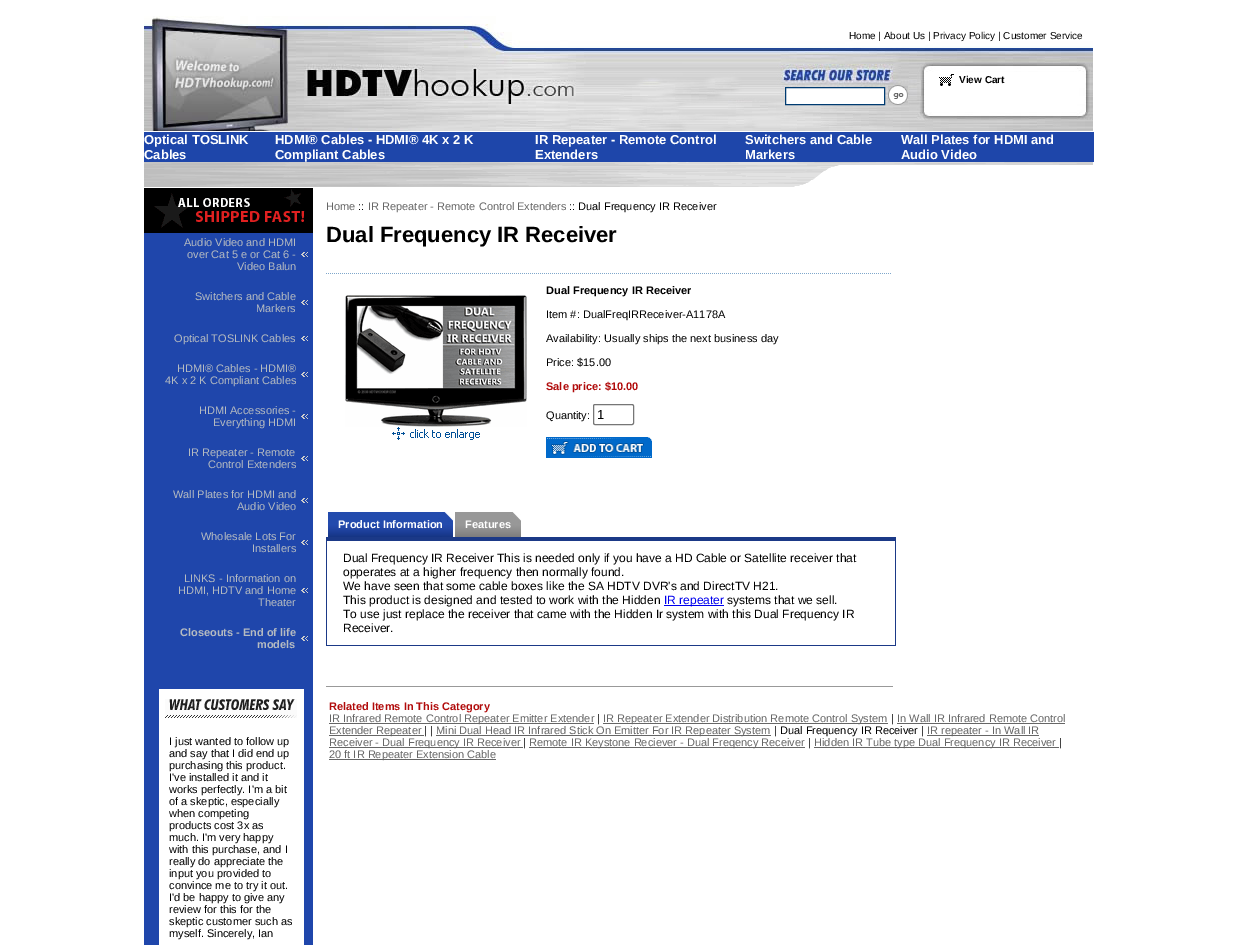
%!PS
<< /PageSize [1237 945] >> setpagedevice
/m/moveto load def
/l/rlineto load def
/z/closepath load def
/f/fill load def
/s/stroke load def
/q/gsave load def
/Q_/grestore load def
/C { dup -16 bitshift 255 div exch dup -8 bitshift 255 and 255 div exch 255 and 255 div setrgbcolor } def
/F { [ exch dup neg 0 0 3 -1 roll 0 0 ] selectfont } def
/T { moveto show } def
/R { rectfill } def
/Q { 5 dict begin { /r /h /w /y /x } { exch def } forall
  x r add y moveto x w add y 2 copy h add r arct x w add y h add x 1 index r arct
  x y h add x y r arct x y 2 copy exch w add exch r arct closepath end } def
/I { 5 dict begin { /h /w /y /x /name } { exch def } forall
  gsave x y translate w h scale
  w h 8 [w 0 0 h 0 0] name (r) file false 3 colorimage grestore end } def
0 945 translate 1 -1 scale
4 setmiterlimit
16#FFFFFF C
0 0 1237 945 R
(1.rgb) 144 16 949 115 I
/LiberationSans-Regular 10 F
16#000000 C
(Home | About Us | Privacy Policy | Customer Service) 849 39 T
(2.rgb) 939 74 15 12 I
/LiberationSans-Bold 10 F
(View Cart) 959 83 T
16#FFFFFF C
785.5 87.5 m 99 0 l 0 17 l -99 0 l z q f Q_
16#003B71 C
s
(3.rgb) 888 85 20 20 I
16#1E46AA C
144 132 950 30 R
/LiberationSans-Bold 13 F
16#FFFFFF C
(Optical TOSLINK) 144 144 T
(Cables) 144 159 T
(HDMI® Cables - HDMI® 4K x 2 K) 275 144 T
(Compliant Cables) 275 159 T
(IR Repeater - Remote Control) 535 144 T
(Extenders) 535 159 T
(Switchers and Cable) 745 144 T
(Markers) 745 159 T
(Wall Plates for HDMI and) 901 144 T
(Audio Video) 901 159 T
(4.rgb) 144 162 949 25 I
16#1F46AB C
144 233 169 712 R
(5.rgb) 144 187 169 46 I
(6.rgb) 301 252 7 5 I
/LiberationSans-Regular 11 F
16#B5BBC1 C
(Audio Video and HDMI) 184 246 T
(over Cat 5 e or Cat 6 -) 187 258 T
(Video Balun) 237 270 T
(6.rgb) 301 300 7 5 I
(Switchers and Cable) 195 300 T
(Markers) 256 312 T
(6.rgb) 301 336 7 5 I
(Optical TOSLINK Cables) 174 342 T
(6.rgb) 301 372 7 5 I
(HDMI® Cables - HDMI®) 177 372 T
(4K x 2 K Compliant Cables) 165 384 T
(6.rgb) 301 414 7 5 I
(HDMI Accessories -) 199 414 T
(Everything HDMI) 213 426 T
(6.rgb) 301 456 7 5 I
(IR Repeater - Remote) 188 456 T
(Control Extenders) 208 468 T
(6.rgb) 301 498 7 5 I
(Wall Plates for HDMI and) 173 498 T
(Audio Video) 237 510 T
(6.rgb) 301 540 7 5 I
(Wholesale Lots For) 201 540 T
(Installers) 252 552 T
(6.rgb) 301 588 7 5 I
(LINKS - Information on) 184 582 T
(HDMI, HDTV and Home) 178 594 T
(Theater) 258 606 T
(6.rgb) 301 636 7 5 I
/LiberationSans-Bold 11 F
(Closeouts - End of life) 180 636 T
(models) 257 648 T
16#FFFFFF C
159 689 145 256 R
(7.rgb) 165 699 132 19 I
/LiberationSans-Regular 11 F
16#000000 C
(I just wanted to follow up) 169 745 T
(and say that I did end up) 169 757 T
(purchasing this product.) 169 769 T
(I've installed it and it) 169 781 T
(works perfectly. I'm a bit) 169 793 T
(of a skeptic, especially) 169 805 T
(when competing) 169 817 T
(products cost 3x as) 169 829 T
(much. I'm very happy) 169 841 T
(with this purchase, and I) 169 853 T
(really do appreciate the) 169 865 T
(input you provided to) 169 877 T
(convince me to try it out.) 169 889 T
(I'd be happy to give any) 169 901 T
(review for this for the) 169 913 T
(skeptic customer such as) 169 925 T
(myself. Sincerely, Ian) 169 937 T
16#666666 C
(Home) 326 210 T
16#000000 C
(::) 358 210 T
16#666666 C
(IR Repeater - Remote Control Extenders) 368 210 T
16#000000 C
(:: Dual Frequency IR Receiver) 569 210 T
/LiberationSans-Bold 22 F
(Dual Frequency IR Receiver) 326 242 T
(8.rgb) 326 273 565 1 I
(9.rgb) 345 295 182 145 I
/LiberationSans-Bold 11 F
(Dual Frequency IR Receiver) 546 294 T
/LiberationSans-Regular 11 F
(Item #: DualFreqIRReceiver-A1178A) 546 318 T
(Availability: Usually ships the next business day) 546 342 T
(Price: $15.00) 546 366 T
/LiberationSans-Bold 11 F
16#B10B0B C
(Sale price: $10.00) 546 390 T
/LiberationSans-Regular 11 F
16#000000 C
(Quantity:) 546 419 T
16#767676 C
593.5 404.5 40 20 1.5 Q s
/LiberationSans-Regular 13 F
16#000000 C
(1) 597 419 T
(10.rgb) 546 437 106 21 I
(11.rgb) 328 512 125 25 I
/LiberationSans-Bold 11 F
16#FFFFFF C
(Product Information) 338 528 T
(12.rgb) 455 512 66 25 I
(Features) 465 528 T
16#1B3987 C
326 537 570 4 R
895 537 1 109 R
326 645 570 1 R
326 537 1 109 R
/LiberationSans-Regular 12 F
16#000000 C
(Dual Frequency IR Receiver This is needed only if you have a HD Cable or Satellite receiver that) 343 562 T
(opperates at a higher frequency then normally found.) 343 576 T
(We have seen that some cable boxes like the SA HDTV DVR's and DirectTV H21.) 343 590 T
(This product is designed and tested to work with the Hidden) 343 604 T
16#0000EE C
664 605 60 1 R
(IR repeater) 664 604 T
16#000000 C
(systems that we sell.) 727 604 T
(To use just replace the receiver that came with the Hidden Ir system with this Dual Frequency IR) 343 618 T
(Receiver.) 343 632 T
16#999999 C
326 686 567 1 R
/LiberationSans-Bold 11 F
16#B10B0B C
(Related Items In This Category) 329 710 T
16#666666 C
329 723 265 1 R
/LiberationSans-Regular 11 F
(IR Infrared Remote Control Repeater Emitter Extender) 329 722 T
16#000000 C
(|) 597 722 T
16#666666 C
603 723 285 1 R
(IR Repeater Extender Distribution Remote Control System) 603 722 T
16#000000 C
(|) 891 722 T
16#666666 C
(In Wall IR Infrared Remote Control) 897 722 T
897 723 168 1 R
329 735 95 1 R
(Extender Repeater) 329 734 T
16#000000 C
(| |) 424 734 T
16#666666 C
436 735 335 1 R
(Mini Dual Head IR Infrared Stick On Emitter For IR Repeater System) 436 734 T
16#000000 C
(| Dual Frequency IR Receiver |) 774 734 T
16#666666 C
927 735 112 1 R
(IR repeater - In Wall IR) 927 734 T
329 747 194 1 R
(Receiver - Dual Frequency IR Receiver) 329 746 T
16#000000 C
(|) 523 746 T
16#666666 C
529 747 276 1 R
(Remote IR Keystone Reciever - Dual Freqency Receiver) 529 746 T
16#000000 C
(|) 808 746 T
16#666666 C
814 747 245 1 R
(Hidden IR Tube type Dual Frequency IR Receiver) 814 746 T
16#000000 C
(|) 1059 746 T
16#666666 C
329 759 167 1 R
(20 ft IR Repeater Extension Cable) 329 758 T
showpage
